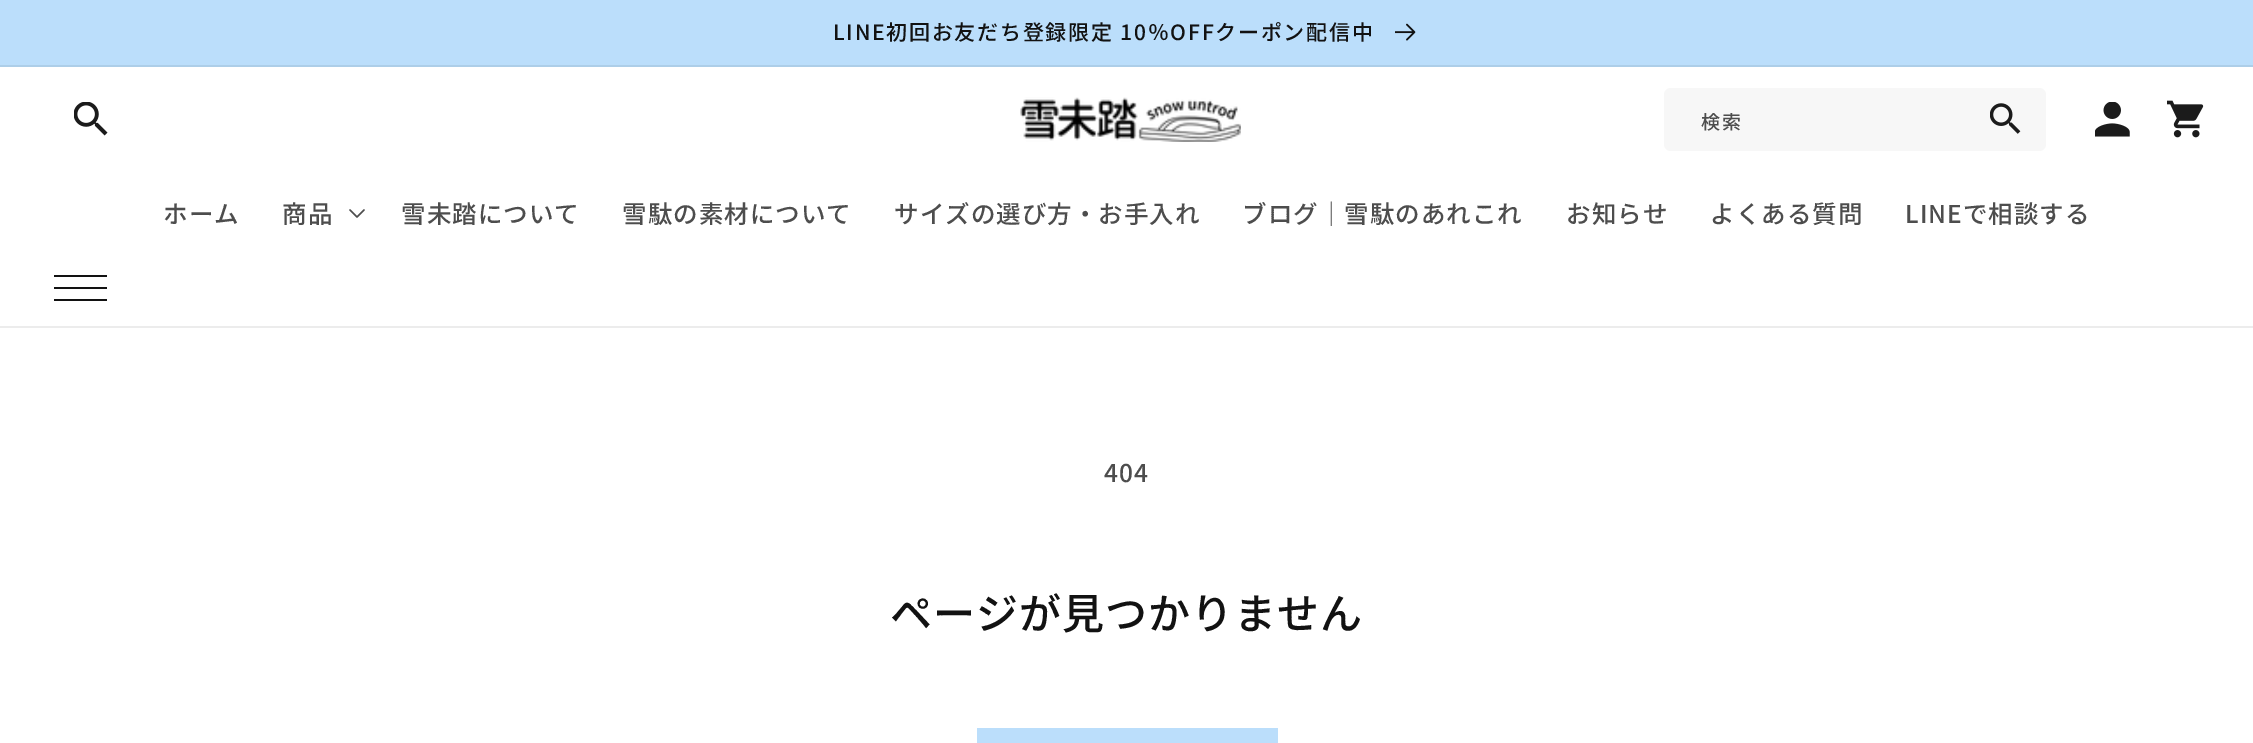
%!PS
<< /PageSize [2253 743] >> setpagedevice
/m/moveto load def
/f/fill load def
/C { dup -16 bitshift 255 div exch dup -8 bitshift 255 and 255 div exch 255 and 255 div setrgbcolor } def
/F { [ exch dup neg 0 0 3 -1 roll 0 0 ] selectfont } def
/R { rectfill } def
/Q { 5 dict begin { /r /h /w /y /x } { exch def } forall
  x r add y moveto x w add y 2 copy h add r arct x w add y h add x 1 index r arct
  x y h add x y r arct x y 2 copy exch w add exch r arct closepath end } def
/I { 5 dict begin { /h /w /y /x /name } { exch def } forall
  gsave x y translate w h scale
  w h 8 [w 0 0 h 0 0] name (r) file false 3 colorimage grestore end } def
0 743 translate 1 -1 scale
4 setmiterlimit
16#FFFFFF C
0 0 2253 743 R
16#BBDEFB C
0 0 2253 65 R
16#ADCEE8 C
0 65 2253 2 R
/NotoSansJP-Medium 21 F
16#121212 C
833 40 m 1.75 0 (LINE初回お友だち登録限定 10％OFFクーポン配信中) ashow
(1.rgb) 1395 23 21 18 I
16#ECECEC C
0 326 2253 2 R
(2.rgb) 74 102 34 34 I
(3.rgb) 1020 97 221 45 I
16#F7F7F7 C
1664 88 382 63 7 Q f
/NotoSansJP-Medium 19 F
16#4D4D4D C
1701 129 m 1.75 0 (検索) ashow
(4.rgb) 1990 103 31 31 I
(5.rgb) 2095 102 35 35 I
(6.rgb) 2167 100 37 38 I
/NotoSansJP-Medium 24.5 F
163 223 m 1 0 (ホーム) ashow
282 223 m 1 0 (商品) ashow
(7.rgb) 349 209 16 9 I
401 223 m 1 0 (雪未踏について) ashow
622 223 m 1 0 (雪駄の素材について) ashow
894 223 m 1 0 (サイズの選び方・お手入れ) ashow
1242 223 m 1 0 (ブログ｜雪駄のあれこれ) ashow
1566 223 m 1 0 (お知らせ) ashow
1710 223 m 1 0 (よくある質問) ashow
1905 223 m 1 0 (LINEで相談する) ashow
16#121212 C
54 275 53 2 R
54 287 53 2 R
54 299 53 2 R
16#4D4D4D C
1104 482 m 1 0 (404) ashow
/NotoSansJP-Medium 42 F
16#121212 C
890 629 m 1 0 (ページが見つかりません) ashow
16#BBDEFB C
977 728 301 15 R
showpage
